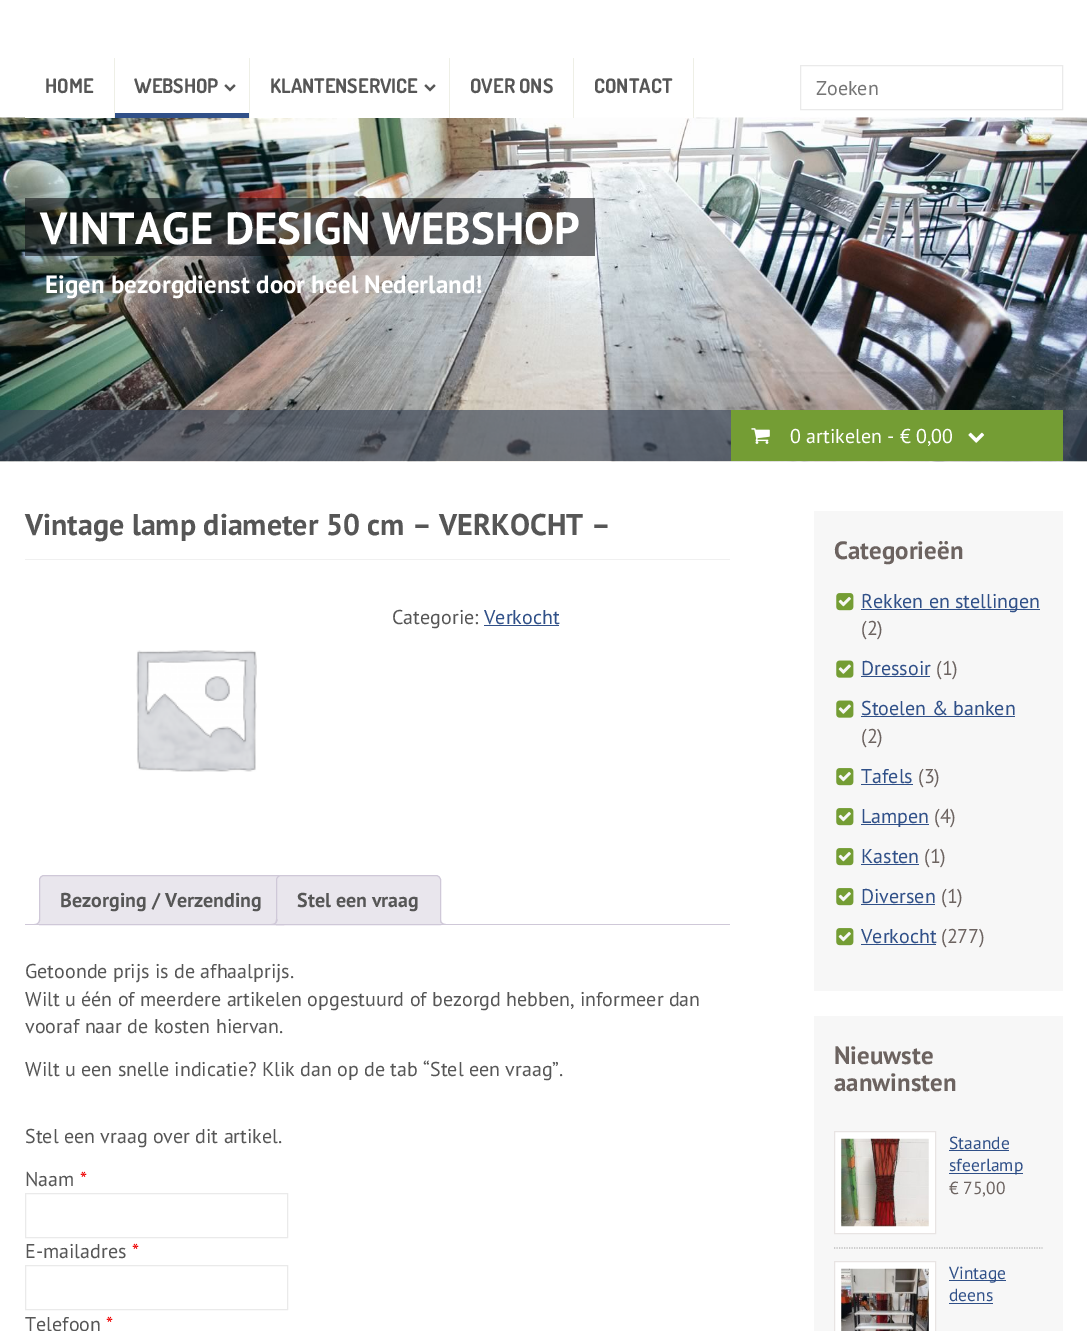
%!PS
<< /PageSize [1087 1331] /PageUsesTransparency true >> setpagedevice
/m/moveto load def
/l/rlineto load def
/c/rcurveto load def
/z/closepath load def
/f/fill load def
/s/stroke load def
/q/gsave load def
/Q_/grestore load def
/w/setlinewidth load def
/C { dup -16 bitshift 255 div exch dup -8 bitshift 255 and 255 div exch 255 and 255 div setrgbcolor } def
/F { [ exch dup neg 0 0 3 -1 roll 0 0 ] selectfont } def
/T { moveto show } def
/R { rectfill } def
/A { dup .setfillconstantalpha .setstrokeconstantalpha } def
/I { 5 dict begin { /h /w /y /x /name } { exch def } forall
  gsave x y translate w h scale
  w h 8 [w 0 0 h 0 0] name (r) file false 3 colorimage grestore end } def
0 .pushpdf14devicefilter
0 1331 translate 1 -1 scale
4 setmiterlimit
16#FFFFFF C
0 0 1087 1331 R
(2.rgb) 0 117 1087 345 I
16#EEEFE6 C
114 58 1 60 R
16#FFFFFF C
25 117 89 1 R
/Dosis-Bold 20 F
16#565656 C
(HOME) 45 93 T
16#EEEFE6 C
249 58 1 60 R
16#305088 C
115 113 134 5 R
16#565656 C
(WEBSHOP) 134 93 T
(1.rgb) 224 84 12 8 I
16#EEEFE6 C
449 58 1 60 R
16#FFFFFF C
250 117 199 1 R
16#565656 C
(KLANTENSERVICE) 270 93 T
(1.rgb) 424 84 12 8 I
16#EEEFE6 C
573 58 1 60 R
16#FFFFFF C
450 117 123 1 R
16#565656 C
(OVER ONS) 470 93 T
16#EEEFE6 C
693 58 1 60 R
16#FFFFFF C
685 117 8 1 R
16#565656 C
(CONTACT) 594 93 T
16#EAEAEA C
800.5 65.5 262 44 rectstroke
/PTSans-Regular 20 F
16#757575 C
(Zoeken) 816 95 T
0.6 A
16#0F1115 C
25 198 570 58 R
/PTSans-Bold 45 F
1 A
16#FFFFFF C
(VINTAGE DESIGN WEBSHOP) 40 244 T
/PTSans-Bold 25 F
(Eigen bezorgdienst door heel Nederland!) 45 293 T
0.66 A
16#3E495A C
0 410 1087 51 R
1 A
16#749D34 C
731 410 332 51 R
(3.rgb) 751 428 19 16 I
/PTSans-Regular 20 F
16#FFFFFF C
(0 artikelen - € 0,00) 790 443 T
(4.rgb) 968 432 17 11 I
16#F0F0F0 C
25 559 705 1 R
/PTSans-Bold 30 F
16#565656 C
(Vintage lamp diameter 50 cm – VERKOCHT –) 25 535 T
/PTSans-Regular 20 F
(Categorie:) 392 624 T
16#305088 C
(Verkocht) 484 624 T
484 625 75 1 R
(5.rgb) 136 650 121 122 I
16#E9E6ED C
44 875.5 m 235 0 l 2.5 0 4.5 2 4.5 4.5 c 0 44.5 l -244 0 l 0 -44.5 l 0 -2.5 2 -4.5 4.5 -4.5 c z q f Q_
16#CFC8D8 C
s
/PTSans-Bold 20 F
16#565656 C
(Bezorging / Verzending) 60 907 T
q
25 875 705 50 rectclip
16#E9E6ED C
36 925 m 0 3 l 5.5 0 7 -1.5 7 -7 c -3 0 l -.5 2 -2 3.5 -4 4 c z f
Q_
16#CFC8D8 C
34 919 m 6 0 l 0 4 -2 6 -6 6 c z 34 919 m 5 0 l 0 3.5 -1.5 5 -5 5 c z eofill
16#E9E6ED C
281 875.5 m 155 0 l 2.5 0 4.5 2 4.5 4.5 c 0 44.5 l -164 0 l 0 -44.5 l 0 -2.5 2 -4.5 4.5 -4.5 c z q f Q_
16#CFC8D8 C
s
16#565656 C
(Stel een vraag) 297 907 T
q
25 875 705 50 rectclip
16#E9E6ED C
274 925 m 0 3 l 5 0 6 -2.5 6 -7 c -2.5 0 l -.5 2 -2 3 -3.5 4 c z f
Q_
16#CFC8D8 C
271 919 m 6.5 0 l 0 4 -2 6 -6.5 6 c z 271 919 m 5 0 l 0 3.5 -1 5 -5 5 c z eofill
q
25 875 705 50 rectclip
16#E9E6ED C
438 921 m 0 4.5 1 7 6 7 c 0 -3 l -2 -.5 -3.5 -2 -4 -4 c z f
Q_
440 919 m 6 0 l 0 6 l -3 0 -6 -1.5 -6 -5 c z 441 919 m 5 0 l 0 5 l -2 0 -5 -1 -5 -4 c z eofill
25 924 705 1 R
/PTSans-Regular 20 F
16#565656 C
(Getoonde prijs is de afhaalprijs.) 25 978 T
(Wilt u één of meerdere artikelen opgestuurd of bezorgd hebben, informeer dan) 25 1006 T
(vooraf naar de kosten hiervan.) 25 1033 T
(Wilt u een snelle indicatie? Klik dan op de tab “Stel een vraag”.) 25 1076 T
(Stel een vraag over dit artikel.) 25 1143 T
(Naam) 25 1186 T
16#EE0000 C
(*) 80 1186 T
16#EAEAEA C
25.5 1193.5 262 44 rectstroke
16#565656 C
(E-mailadres) 25 1258 T
16#EE0000 C
(*) 132 1258 T
16#EAEAEA C
25.5 1265.5 262 44 rectstroke
16#565656 C
(Telefoon) 25 1331 T
16#EE0000 C
(*) 106 1331 T
16#F7F7F7 C
814 511 249 480 R
/PTSans-Bold 25 F
16#6C6360 C
(Categorieën) 834 559 T
(6.rgb) 836 593 18 18 I
16#305088 C
861 609 179 1 R
/PTSans-Regular 20 F
(Rekken en stellingen) 861 608 T
16#6C6360 C
(\(2\)) 861 635 T
(7.rgb) 836 660 18 18 I
16#305088 C
(Dressoir) 861 675 T
861 676 69 1 R
16#6C6360 C
(\(1\)) 936 675 T
(7.rgb) 836 700 18 18 I
16#305088 C
(Stoelen & banken) 861 715 T
861 716 154 1 R
16#6C6360 C
(\(2\)) 861 743 T
(6.rgb) 836 768 18 18 I
16#305088 C
(Tafels) 861 783 T
861 784 52 1 R
16#6C6360 C
(\(3\)) 918 783 T
(6.rgb) 836 808 18 18 I
16#305088 C
861 824 68 1 R
(Lampen) 861 823 T
16#6C6360 C
(\(4\)) 934 823 T
(6.rgb) 836 848 18 18 I
16#305088 C
(Kasten) 861 863 T
861 864 58 1 R
16#6C6360 C
(\(1\)) 924 863 T
(6.rgb) 836 888 18 18 I
16#305088 C
(Diversen) 861 903 T
861 904 74 1 R
16#6C6360 C
(\(1\)) 941 903 T
(6.rgb) 836 928 18 18 I
16#305088 C
(Verkocht) 861 943 T
861 944 75 1 R
16#6C6360 C
(\(277\)) 941 943 T
16#F7F7F7 C
814 1016 249 315 R
/PTSans-Bold 25 F
16#6C6360 C
(Nieuwste) 834 1064 T
(aanwinsten) 834 1091 T
16#BBBBBB C
1.2 w
[1.25 1.25] 0 setdash
834 1248 m 208.5 0 l s
16#FFFFFF C
834.5 1131.5 m 101 0 l 0 102 l -101 0 l z q f Q_
16#E8E4E3 C
1 w
[] 0 setdash
s
(8.rgb) 841 1138 88 89 I
/PTSans-Regular 17.5 F
16#305088 C
(Staande) 949 1149 T
949 1150 60 1 R
949 1173 74 1 R
(sfeerlamp) 949 1171 T
16#6C6360 C
(€ 75,00) 949 1194 T
16#FFFFFF C
834.5 1261.5 m 101 0 l 0 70 l -101 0 l z q f Q_
16#E8E4E3 C
s
(9.rgb) 841 1268 88 63 I
16#305088 C
949 1280 57 1 R
(Vintage) 949 1279 T
(deens) 949 1301 T
949 1303 44 1 R
.poppdf14devicefilter showpage
